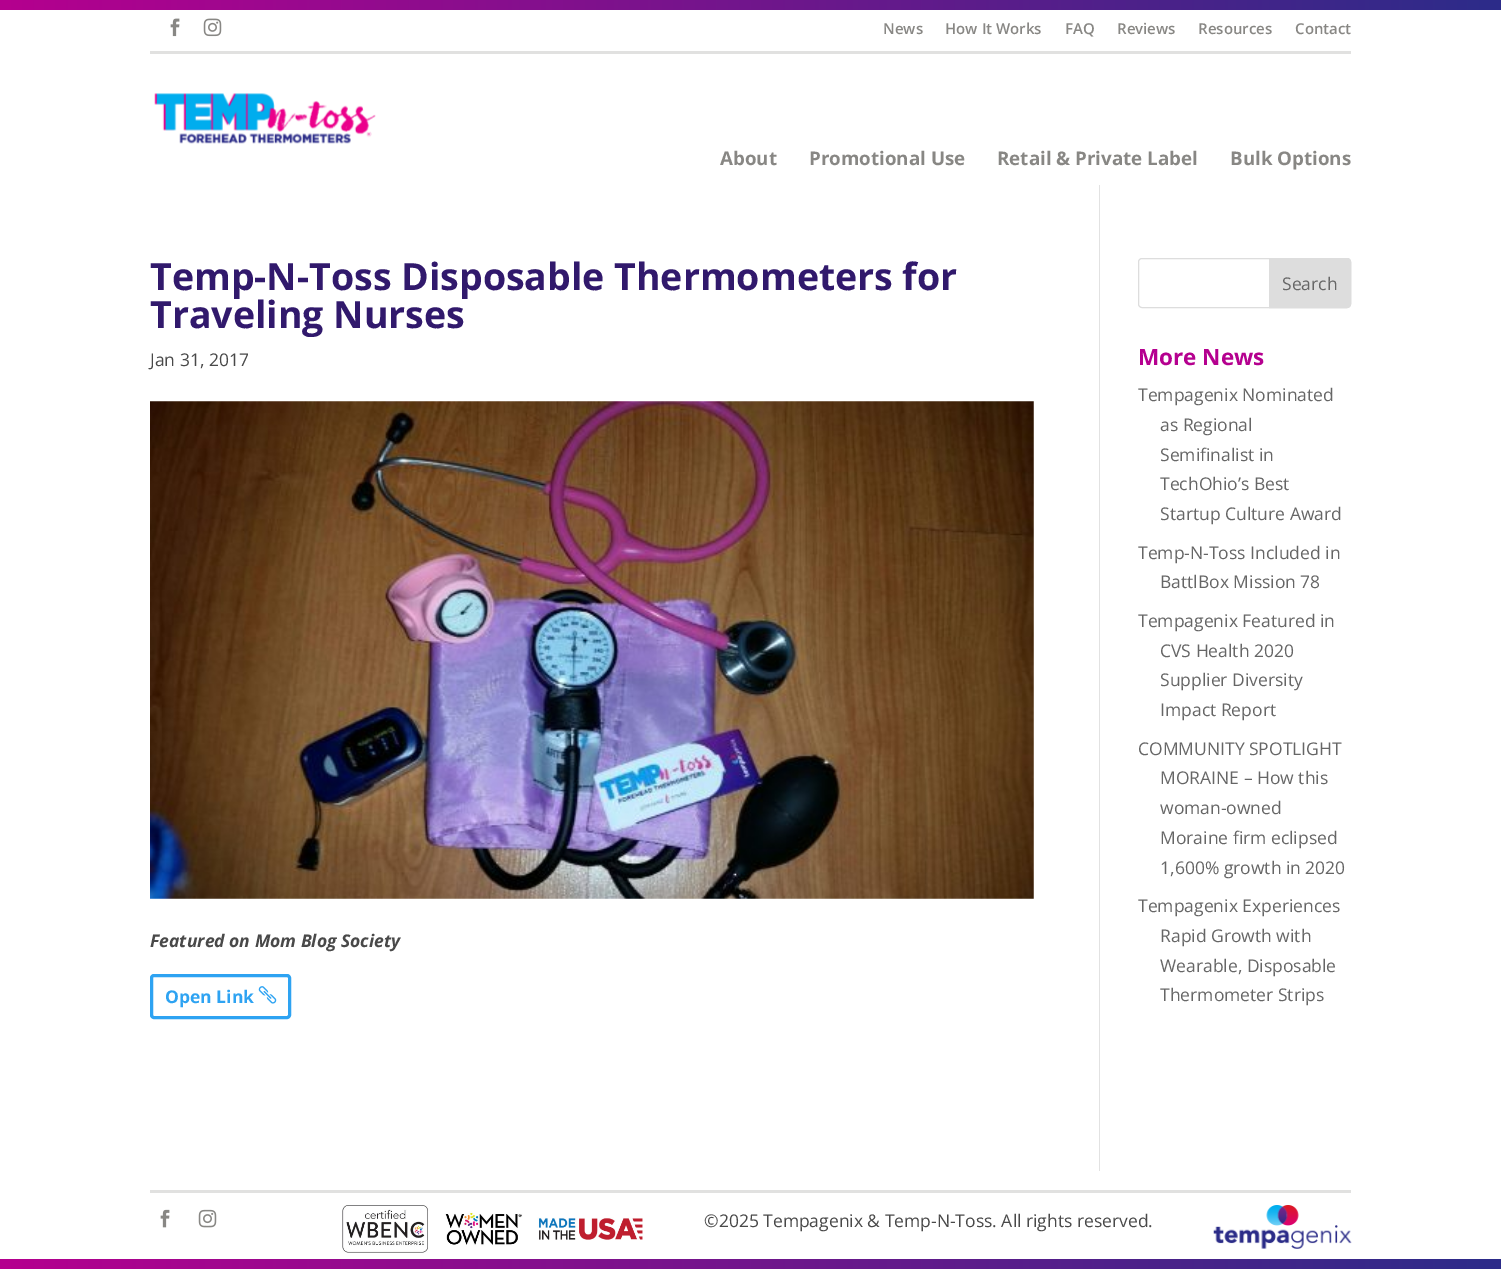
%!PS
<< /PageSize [1501 1277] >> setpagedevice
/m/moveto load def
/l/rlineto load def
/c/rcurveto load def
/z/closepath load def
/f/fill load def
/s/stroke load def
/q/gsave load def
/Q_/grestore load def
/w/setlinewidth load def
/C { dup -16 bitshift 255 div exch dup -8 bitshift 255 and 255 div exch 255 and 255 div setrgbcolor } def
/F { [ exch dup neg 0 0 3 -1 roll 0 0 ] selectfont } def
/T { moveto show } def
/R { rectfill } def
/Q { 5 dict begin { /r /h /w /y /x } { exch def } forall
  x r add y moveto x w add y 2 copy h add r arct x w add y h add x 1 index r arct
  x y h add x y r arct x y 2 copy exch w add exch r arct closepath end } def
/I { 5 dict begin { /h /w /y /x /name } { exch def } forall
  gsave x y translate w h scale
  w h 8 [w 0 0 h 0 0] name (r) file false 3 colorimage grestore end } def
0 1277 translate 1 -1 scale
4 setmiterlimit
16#FFFFFF C
0 0 1501 1277 R
q 0 0 m 1501 0 l 0 10 l -1501 0 l z clip newpath
<< /ShadingType 2 /ColorSpace /DeviceRGB /Coords [0 5 1501 5] /Extend [true true] /Function << /FunctionType 2 /Domain [0 1] /C0 [.71 0 .561] /C1 [.173 .173 .537] /N 1 >> >> shfill Q_
(1.rgb) 170 18 10 19 I
(2.rgb) 203 18 19 19 I
/OpenSans-SemiBold 15 F
16#888784 C
(News) 883 34 T
(How It Works) 945 34 T
(FAQ) 1065 34 T
(Reviews) 1117 34 T
(Resources) 1198 34 T
(Contact) 1295 34 T
16#E1E1E0 C
150 51 1201 3 R
(3.rgb) 154 93 222 51 I
/OpenSans-Bold 18.75 F
16#888784 C
(About) 720 165 T
(Promotional Use) 809 165 T
(Retail & Private Label) 997 165 T
(Bulk Options) 1230 165 T
16#E2E2E2 C
1099 185 1 986 R
/OpenSans-Bold 37.5 F
16#31196C C
(Temp-N-Toss Disposable Thermometers for) 150 290 T
(Traveling Nurses) 150 328 T
/OpenSans-Regular 17.5 F
16#494949 C
(Jan 31, 2017) 150 366 T
(4.rgb) 150 401 884 498 I
/OpenSans-BoldItalic 17.5 F
(Featured on Mom Blog Society) 150 947 T
16#2EA3F2 C
3 w
151.5 975.5 138 42 2.5 Q s
/OpenSans-Bold 17.5 F
(Open Link) 165 1003 T
(5.rgb) 258 986 19 18 I
16#DDDDDD C
1 w
1138.5 258.5 212 49 3.5 Q s
1269.5 258.5 m 77.5 0 l 2 0 3.5 1.5 3.5 3.5 c 0 42 l 0 2 -1.5 3.5 -3.5 3.5 c -77.5 0 l z q f Q_
s
/OpenSans-Regular 17.5 F
16#666666 C
(Search) 1282 290 T
/OpenSans-Bold 22.5 F
16#B5008F C
(More News) 1138 365 T
/OpenSans-Regular 17.5 F
16#666666 C
(Tempagenix Nominated) 1138 401 T
(as Regional) 1160 431 T
(Semifinalist in) 1160 461 T
(TechOhio’s Best) 1160 490 T
(Startup Culture Award) 1160 520 T
(Temp-N-Toss Included in) 1138 559 T
(BattlBox Mission 78) 1160 588 T
(Tempagenix Featured in) 1138 627 T
(CVS Health 2020) 1160 657 T
(Supplier Diversity) 1160 686 T
(Impact Report) 1160 716 T
(COMMUNITY SPOTLIGHT) 1138 755 T
(MORAINE – How this) 1160 784 T
(woman-owned) 1160 814 T
(Moraine firm eclipsed) 1160 844 T
(1,600% growth in 2020) 1160 874 T
(Tempagenix Experiences) 1138 912 T
(Rapid Growth with) 1160 942 T
(Wearable, Disposable) 1160 972 T
(Thermometer Strips) 1160 1001 T
16#E1E1E0 C
150 1190 1201 3 R
(6.rgb) 160 1209 10 19 I
(7.rgb) 198 1209 19 19 I
(8.rgb) 342 1205 301 48 I
16#494949 C
(©2025 Tempagenix & Temp-N-Toss. All rights reserved.) 704 1227 T
(9.rgb) 1213 1205 139 44 I
q 0 1259 m 1501 0 l 0 10 l -1501 0 l z clip newpath
<< /ShadingType 2 /ColorSpace /DeviceRGB /Coords [0 1264 1501 1264] /Extend [true true] /Function << /FunctionType 2 /Domain [0 1] /C0 [.71 0 .561] /C1 [.173 .173 .537] /N 1 >> >> shfill Q_
showpage
